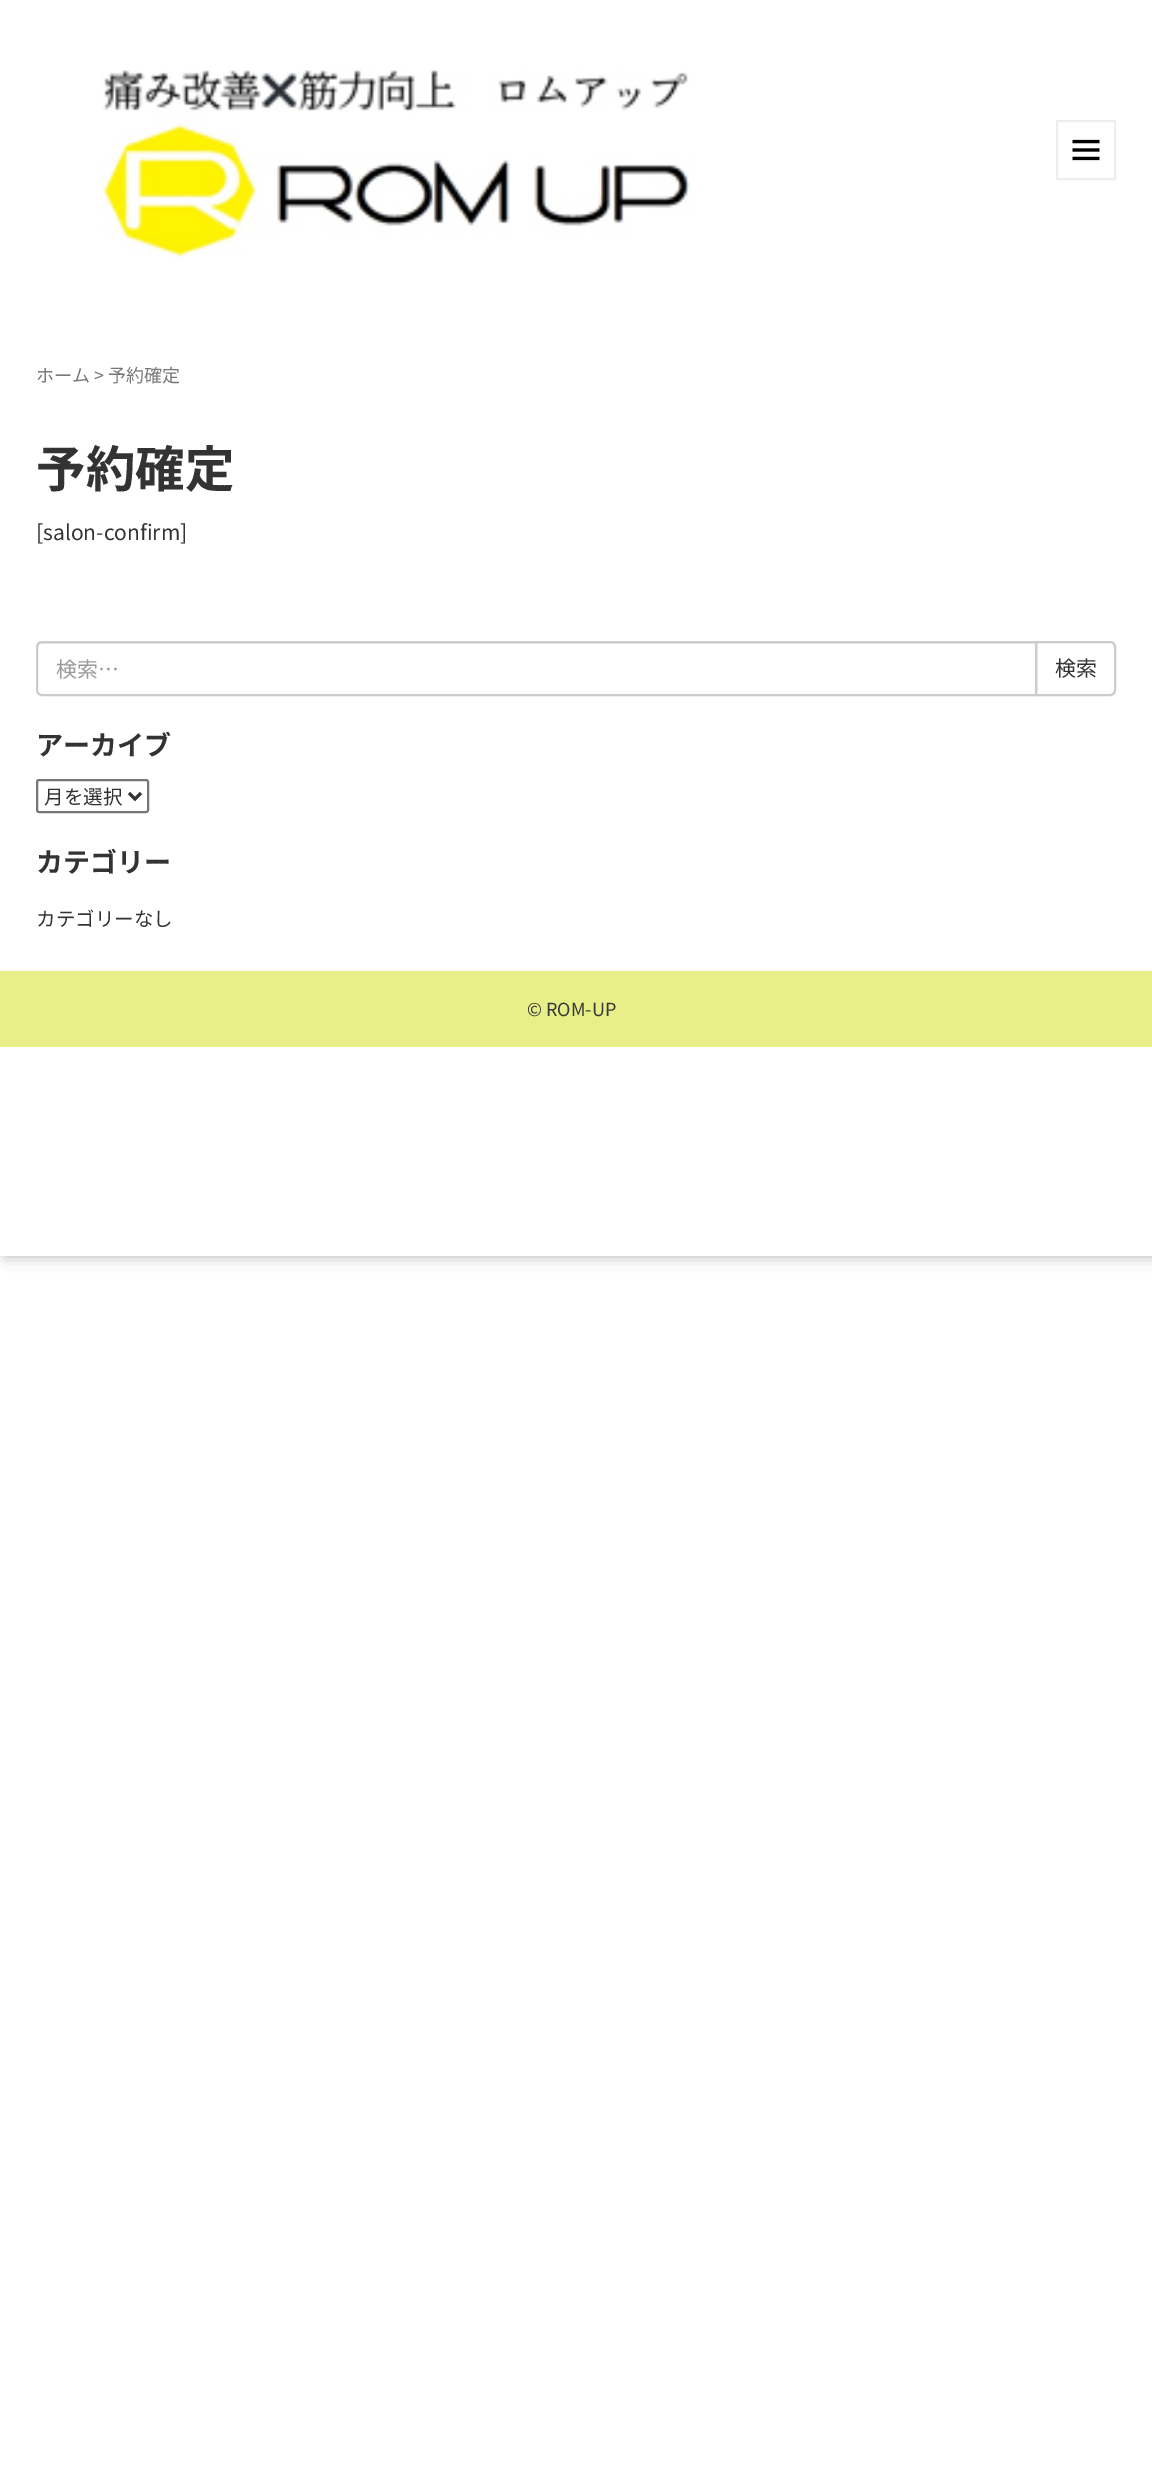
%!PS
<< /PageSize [1152 2468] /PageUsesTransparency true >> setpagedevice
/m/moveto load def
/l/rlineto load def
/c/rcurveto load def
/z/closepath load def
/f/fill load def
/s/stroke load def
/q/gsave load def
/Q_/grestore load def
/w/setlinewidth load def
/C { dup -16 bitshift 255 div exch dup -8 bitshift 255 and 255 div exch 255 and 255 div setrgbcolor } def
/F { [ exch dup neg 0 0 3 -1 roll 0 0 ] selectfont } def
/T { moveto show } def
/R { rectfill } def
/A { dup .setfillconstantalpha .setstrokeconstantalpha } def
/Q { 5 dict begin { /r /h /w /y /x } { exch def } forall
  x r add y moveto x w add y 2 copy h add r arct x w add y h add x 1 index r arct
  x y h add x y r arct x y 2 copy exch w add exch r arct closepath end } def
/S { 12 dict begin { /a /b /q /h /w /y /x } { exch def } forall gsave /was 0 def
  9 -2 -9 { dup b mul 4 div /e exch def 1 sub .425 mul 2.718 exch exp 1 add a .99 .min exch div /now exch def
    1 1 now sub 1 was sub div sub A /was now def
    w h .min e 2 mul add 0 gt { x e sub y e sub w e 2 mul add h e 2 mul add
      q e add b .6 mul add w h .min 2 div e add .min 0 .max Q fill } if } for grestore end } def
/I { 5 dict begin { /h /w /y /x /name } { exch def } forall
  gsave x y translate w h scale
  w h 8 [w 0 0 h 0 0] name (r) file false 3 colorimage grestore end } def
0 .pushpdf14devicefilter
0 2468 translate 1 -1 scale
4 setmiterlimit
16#FFFFFF C
0 0 1152 2468 R
q
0 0 m 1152 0 l 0 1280 l -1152 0 l z 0 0 m 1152 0 l 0 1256 l -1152 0 l z eoclip newpath
16#000000 C
5 0 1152 1256 0 7.5 .3 S
Q_
(1.rgb) 102 70 588 187 I
16#EEEEEE C
2 w
1057 121 58 58 rectstroke
(2.rgb) 1072 139 28 22 I
/NotoSansJP-Regular 18 F
16#777777 C
(ホーム > 予約確定) 36 382 T
/NotoSansJP-Bold 49.5 F
16#333333 C
(予約確定) 36 487 T
/NotoSansJP-Regular 21 F
([salon-confirm]) 36 540 T
16#CCCCCC C
1036 642 m 74 0 l 3 0 5 2 5 5 c 0 43 l 0 3 -2 5 -5 5 c -74 0 l z s
16#FFFFFF C
42 641 m 995 0 l 0 55 l -995 0 l -3.5 0 -6 -2.5 -6 -6 c 0 -43 l 0 -3.5 2.5 -6 6 -6 c z f
16#ECECEC C
42 644 m 993 0 l 0 -2 l -992 0 l -3 0 -5 3 -5 6 c 0 -2 2 -4 4 -4 c z f
16#CCCCCC C
42 642 m 994 0 l 0 53 l -994 0 l -3 0 -5 -2 -5 -5 c 0 -43 l 0 -3 2 -5 5 -5 c z s
16#999999 C
(検索…) 56 677 T
16#333333 C
(検索) 1055 676 T
/NotoSansJP-Bold 27 F
(アーカイブ) 36 755 T
16#767676 C
37 780 111 32 2 Q s
16#333333 C
3 w
129 793 m 6 6 l 6 -6 l s
/NotoSansJP-Regular 19.5 F
(月を選択) 44 804 T
/NotoSansJP-Bold 27 F
(カテゴリー) 36 872 T
/NotoSansJP-Regular 19.5 F
(カテゴリーなし) 36 926 T
16#E8EF88 C
0 971 1152 76 R
/NotoSansJP-Regular 18 F
16#393939 C
(© ROM-UP) 527 1016 T
.poppdf14devicefilter showpage
